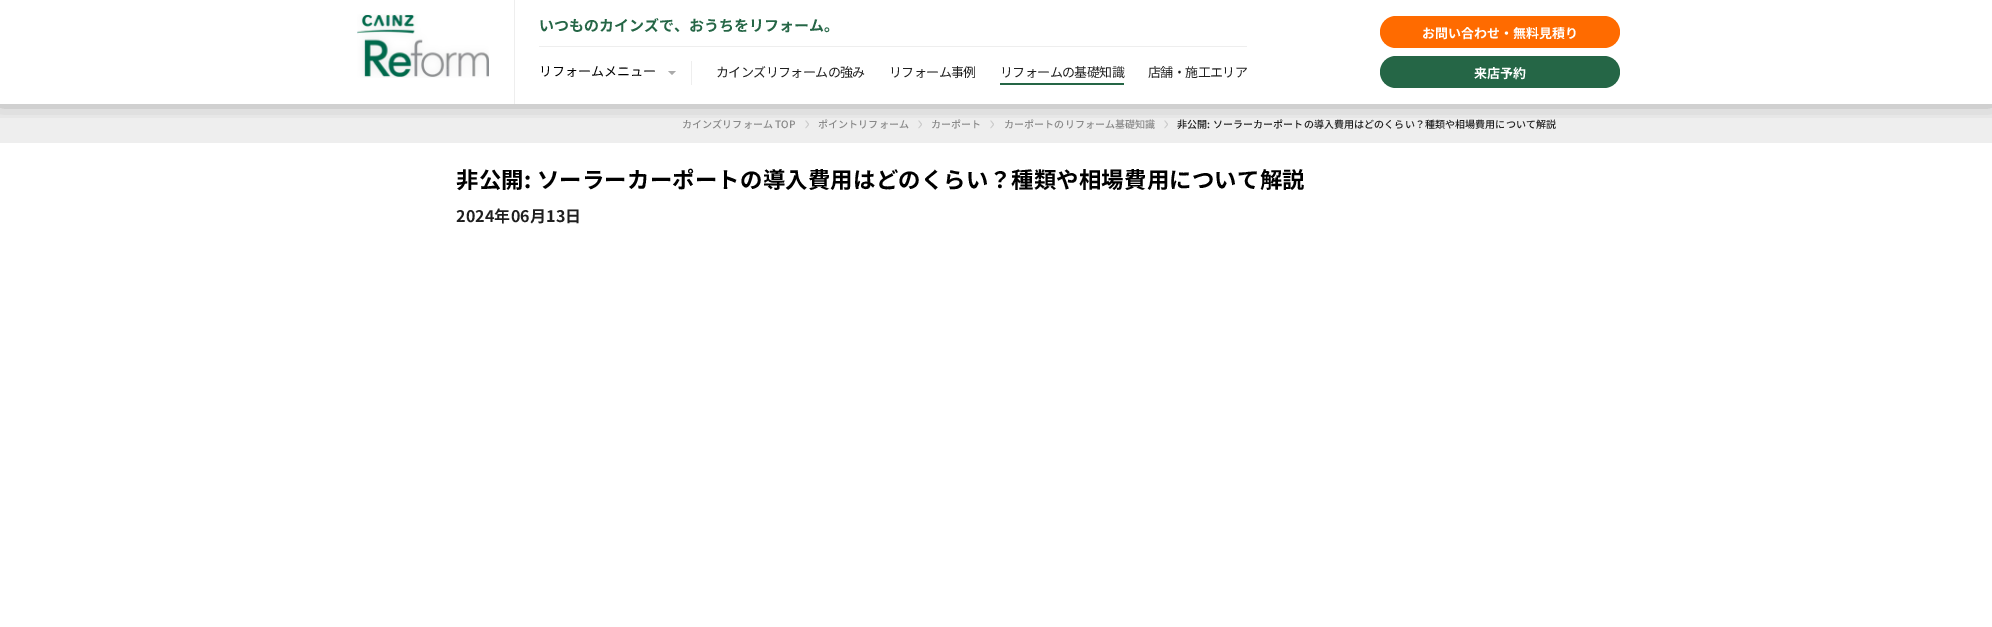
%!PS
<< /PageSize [1992 627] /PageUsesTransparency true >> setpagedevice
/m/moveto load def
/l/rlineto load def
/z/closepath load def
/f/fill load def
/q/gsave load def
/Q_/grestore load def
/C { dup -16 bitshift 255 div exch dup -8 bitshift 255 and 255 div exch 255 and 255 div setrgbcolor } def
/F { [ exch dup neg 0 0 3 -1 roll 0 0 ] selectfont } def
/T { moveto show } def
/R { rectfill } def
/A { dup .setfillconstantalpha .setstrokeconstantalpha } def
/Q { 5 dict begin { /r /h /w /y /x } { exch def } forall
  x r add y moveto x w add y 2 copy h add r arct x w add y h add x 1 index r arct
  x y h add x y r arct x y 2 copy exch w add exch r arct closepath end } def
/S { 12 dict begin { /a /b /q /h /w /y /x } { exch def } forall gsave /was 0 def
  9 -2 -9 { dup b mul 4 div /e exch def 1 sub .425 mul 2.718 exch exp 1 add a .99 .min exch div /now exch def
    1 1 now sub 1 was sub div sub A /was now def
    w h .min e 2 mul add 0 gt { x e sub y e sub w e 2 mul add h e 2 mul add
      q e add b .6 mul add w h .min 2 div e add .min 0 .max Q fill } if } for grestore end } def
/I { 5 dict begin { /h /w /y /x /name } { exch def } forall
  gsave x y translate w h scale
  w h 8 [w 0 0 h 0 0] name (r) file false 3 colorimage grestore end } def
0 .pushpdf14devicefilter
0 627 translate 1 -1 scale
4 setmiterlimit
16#FFFFFF C
0 0 1992 627 R
16#EEEEEE C
0 104 1992 39 R
q
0 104 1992 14 rectclip
16#000000 C
0 -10 1992 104 0 12 .8 S
Q_
514 0 1 104 R
(1.rgb) 357 14 132 64 I
539 46 708 1 R
/NotoSansJP-Bold 15 F
16#256646 C
(いつものカインズで、おうちをリフォーム。) 539 31 T
/NotoSansJP-Regular 13 F
16#000000 C
(リフォームメニュー) 539 76 T
16#AAAAAA C
668 71 m 8 0 l -4 4 l z f
16#EEEEEE C
691 61 1 24 R
16#1F1F1F C
716 77 m -.6 0 (カインズリフォームの強み) ashow
889 77 m -.6 0 (リフォーム事例) ashow
16#256646 C
1000 83 124 2 R
16#1F1F1F C
1000 77 m -.6 0 (リフォームの基礎知識) ashow
1148 77 m -.6 0 (店舗・施工エリア) ashow
16#FF6B00 C
1380 16 240 32 16 Q f
/NotoSansJP-Bold 13 F
16#FFFFFF C
(お問い合わせ・無料見積り) 1422 38 T
16#256646 C
1380 56 240 32 16 Q f
16#FFFFFF C
(来店予約) 1474 78 T
/NotoSansJP-Medium 10 F
16#888888 C
682 128 m .1 0 (カインズリフォーム TOP) ashow
/NotoSansJP-Regular 20 F
16#CCCCCC C
804 130 m .1 0 (›) ashow
/NotoSansJP-Medium 10 F
16#888888 C
818 128 m .1 0 (ポイントリフォーム) ashow
/NotoSansJP-Regular 20 F
16#CCCCCC C
917 130 m .1 0 (›) ashow
/NotoSansJP-Medium 10 F
16#888888 C
931 128 m .1 0 (カーポート) ashow
/NotoSansJP-Regular 20 F
16#CCCCCC C
989 130 m .1 0 (›) ashow
/NotoSansJP-Medium 10 F
16#888888 C
1004 128 m .1 0 (カーポートのリフォーム基礎知識) ashow
/NotoSansJP-Regular 20 F
16#CCCCCC C
1163 130 m .1 0 (›) ashow
/NotoSansJP-Medium 10 F
16#1F1F1F C
1177 128 m .1 0 (非公開: ソーラーカーポートの導入費用はどのくらい？種類や相場費用について解説) ashow
/NotoSansJP-Bold 22.4 F
16#000000 C
456 188 m .2 0 (非公開: ソーラーカーポートの導入費用はどのくらい？種類や相場費用について解説) ashow
/NotoSansJP-Bold 16 F
16#1F1F1F C
456 222 m .2 0 (2024年06月13日) ashow
.poppdf14devicefilter showpage
